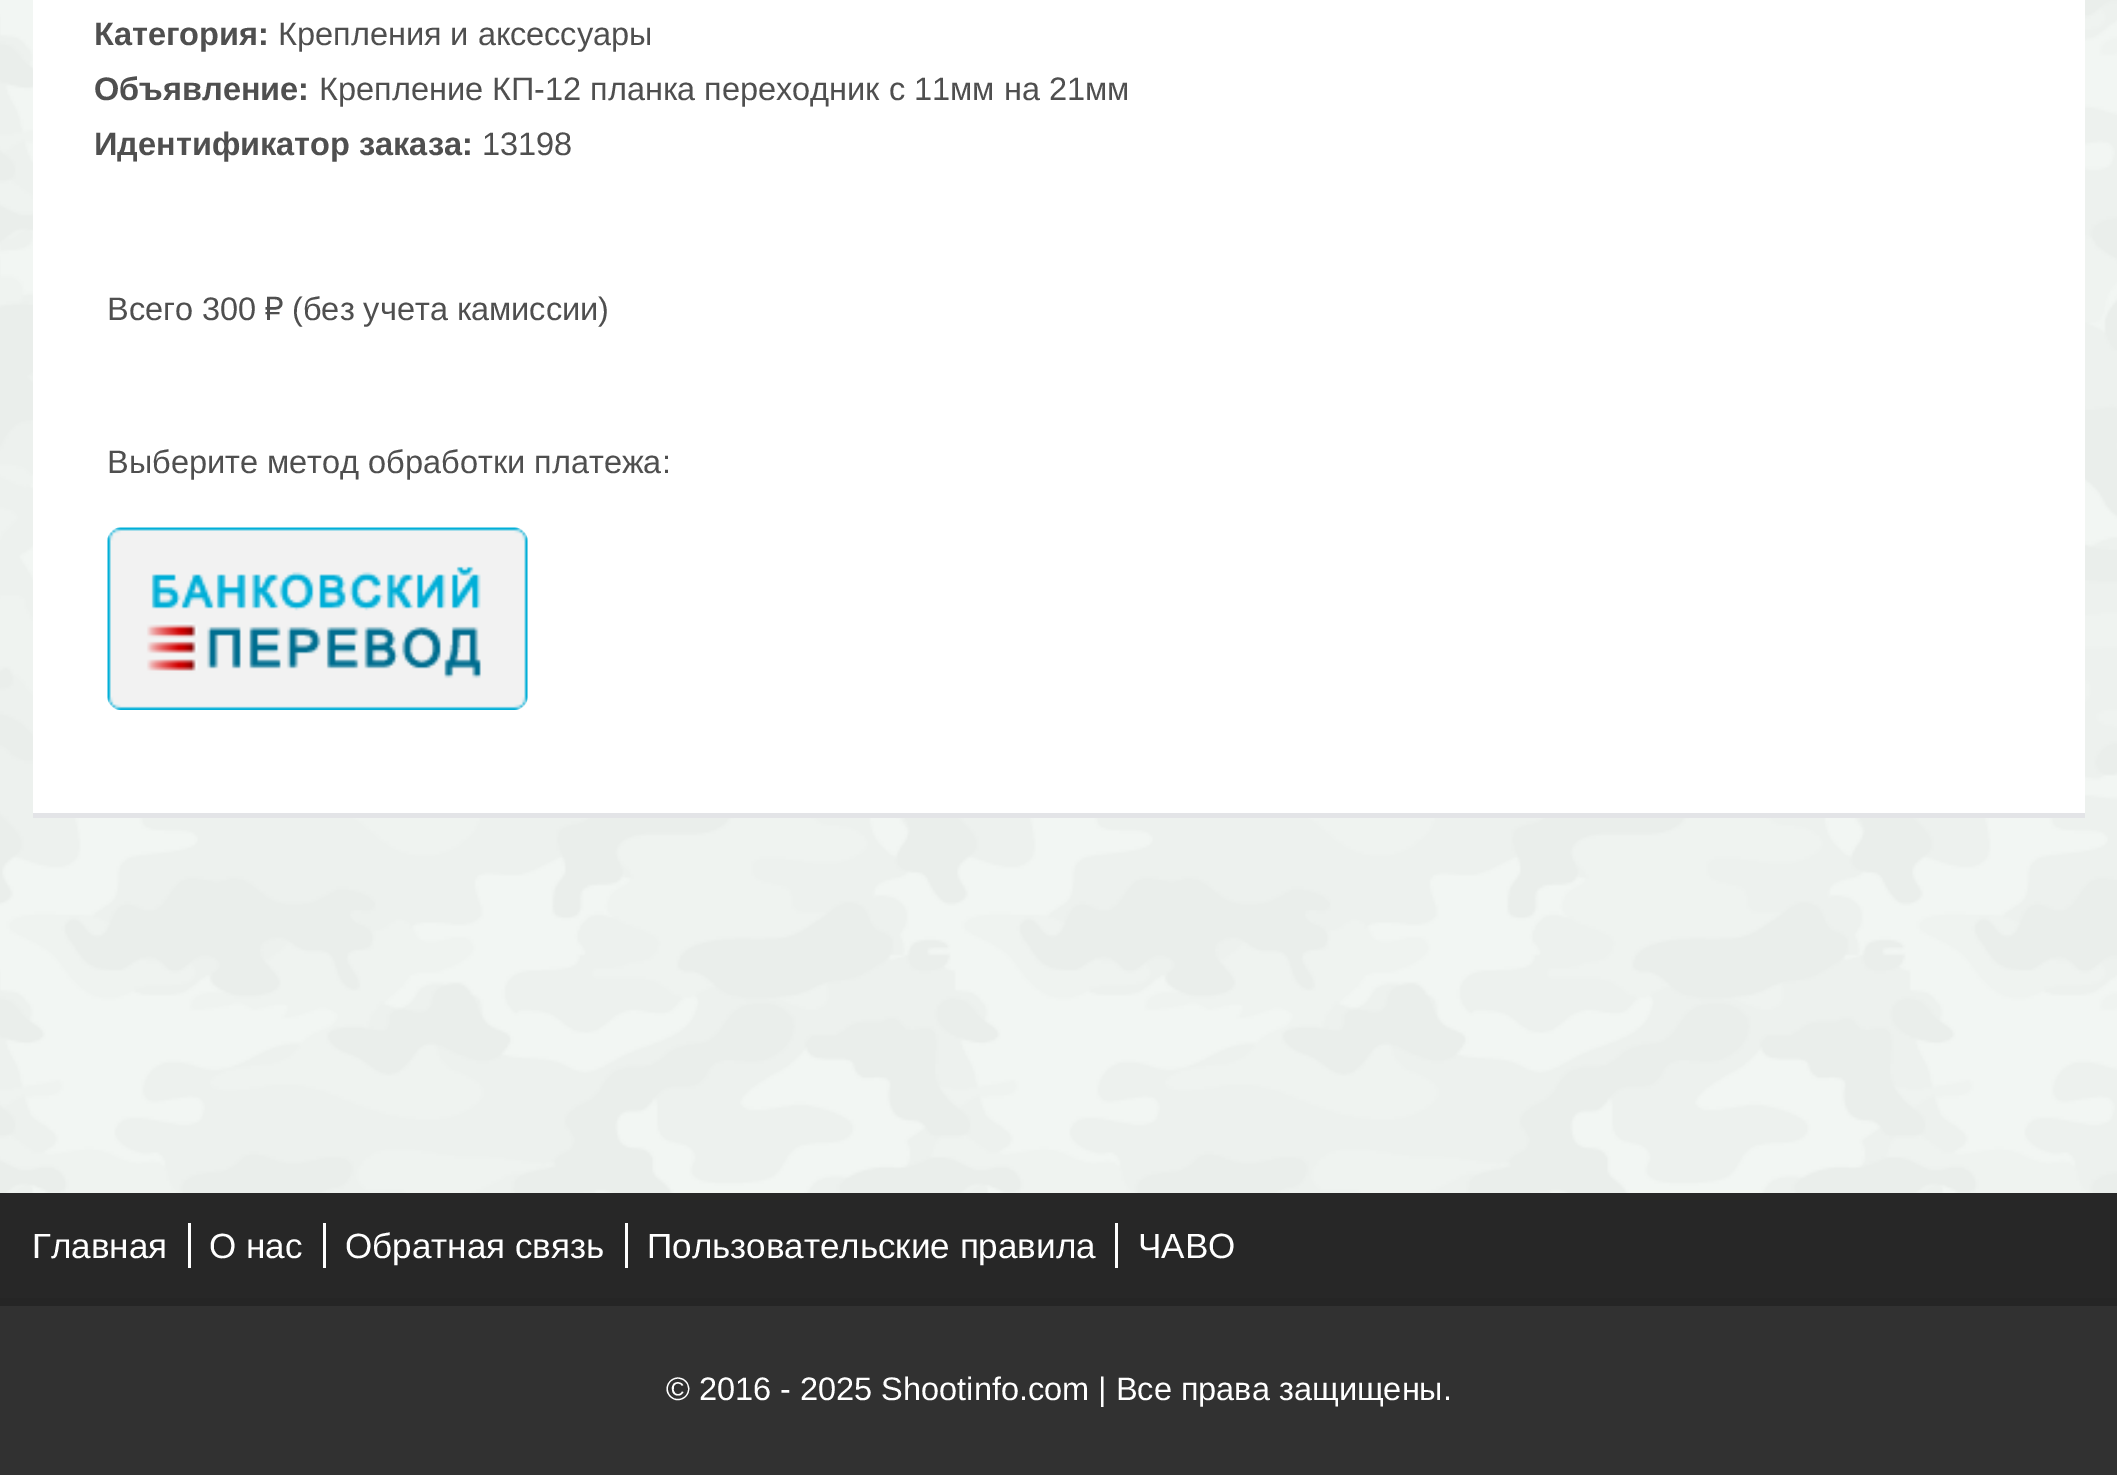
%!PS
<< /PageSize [2117 1475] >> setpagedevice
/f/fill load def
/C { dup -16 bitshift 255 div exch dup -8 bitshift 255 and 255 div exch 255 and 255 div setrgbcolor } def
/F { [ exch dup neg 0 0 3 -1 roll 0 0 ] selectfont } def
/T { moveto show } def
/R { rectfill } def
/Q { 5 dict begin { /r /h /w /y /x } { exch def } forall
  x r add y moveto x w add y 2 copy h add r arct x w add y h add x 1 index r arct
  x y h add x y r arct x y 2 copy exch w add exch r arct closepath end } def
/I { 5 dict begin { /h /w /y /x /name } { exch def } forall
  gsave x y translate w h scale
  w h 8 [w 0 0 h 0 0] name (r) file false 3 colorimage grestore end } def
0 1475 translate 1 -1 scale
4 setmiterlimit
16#F3F8F4 C
0 0 2117 1475 R
(1.rgb) 0 0 2117 1193 I
16#E3E4E7 C
33 813 2052 5 R
16#FFFFFF C
33 0 2052 813 R
/LiberationSans-Bold 32.5 F
16#4F4F4F C
(Категория:) 94 45 T
/LiberationSans-Regular 32.5 F
(Крепления и аксессуары) 278 45 T
/LiberationSans-Bold 32.5 F
(Объявление:) 94 100 T
/LiberationSans-Regular 32.5 F
(Крепление КП-12 планка переходник с 11мм на 21мм) 319 100 T
/LiberationSans-Bold 32.5 F
(Идентификатор заказа:) 94 155 T
/LiberationSans-Regular 32.5 F
(13198) 482 155 T
(Всего 300) 107 320 T
/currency-Regular 32.5 F
(₽) 265 320 T
/LiberationSans-Regular 32.5 F
(\(без учета камиссии\)) 292 320 T
(Выберите метод обработки платежа:) 107 473 T
16#F2F2F2 C
108 528 420 182 13 Q f
(2.rgb) 107 527 421 183 I
16#313131 C
0 1306 2117 169 R
16#272727 C
0 1193 2117 105 R
/LiberationSans-Regular 35 F
16#FFFFFF C
(Главная) 32 1258 T
188 1223 3 45 R
(О нас) 209 1258 T
323 1223 3 45 R
(Обратная связь) 345 1258 T
625 1223 3 45 R
(Пользовательские правила) 647 1258 T
1115 1223 3 45 R
(ЧАВО) 1138 1258 T
16#252525 C
0 1298 2117 8 R
/LiberationSans-Regular 32.5 F
16#FFFFFF C
(© 2016 - 2025 Shootinfo.com | Все права защищены.) 666 1400 T
showpage
